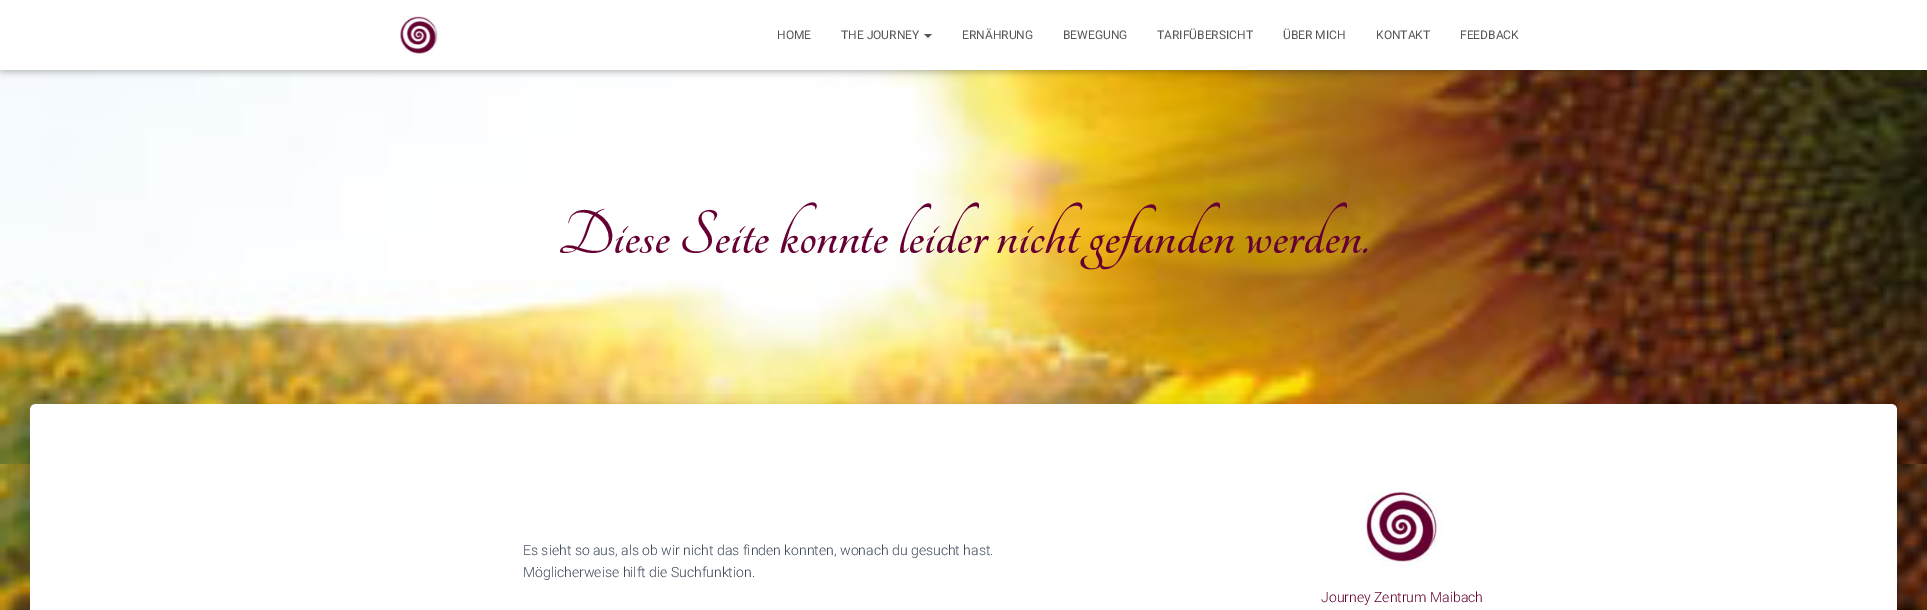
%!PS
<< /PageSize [1927 610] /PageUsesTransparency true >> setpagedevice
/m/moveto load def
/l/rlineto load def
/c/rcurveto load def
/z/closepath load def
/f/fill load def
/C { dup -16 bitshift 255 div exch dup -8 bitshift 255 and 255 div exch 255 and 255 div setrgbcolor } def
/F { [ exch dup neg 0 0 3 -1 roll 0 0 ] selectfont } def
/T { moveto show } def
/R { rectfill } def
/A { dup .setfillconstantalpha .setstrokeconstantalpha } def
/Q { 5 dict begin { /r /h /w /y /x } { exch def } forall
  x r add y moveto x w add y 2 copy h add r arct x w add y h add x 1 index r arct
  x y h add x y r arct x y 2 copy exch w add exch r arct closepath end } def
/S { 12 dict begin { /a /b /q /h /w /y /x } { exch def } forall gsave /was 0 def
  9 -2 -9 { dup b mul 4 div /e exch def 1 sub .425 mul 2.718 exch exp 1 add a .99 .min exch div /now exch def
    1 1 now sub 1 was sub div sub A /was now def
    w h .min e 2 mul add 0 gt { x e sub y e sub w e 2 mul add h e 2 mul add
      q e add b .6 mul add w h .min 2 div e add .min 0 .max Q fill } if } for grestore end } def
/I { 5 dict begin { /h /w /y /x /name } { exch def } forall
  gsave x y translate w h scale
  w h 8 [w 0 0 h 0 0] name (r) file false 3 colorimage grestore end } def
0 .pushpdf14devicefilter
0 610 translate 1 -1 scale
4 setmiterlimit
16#FFFFFF C
0 0 1927 610 R
(1.rgb) 0 464 1927 146 I
(3.rgb) 0 70 1927 394 I
16#000000 C
2 6 1923 66 0 2.5 .1 S
0 1 1927 70 0 5 .12 S
6 7 1915 58 0 5 .42 S
16#FFFFFF C
0 0 1927 70 R
(2.rgb) 400 16 41 41 I
/Roboto-Regular 12 F
16#555555 C
(HOME) 777 39 T
(THE JOURNEY) 841 39 T
924 34 m 8 0 l -4 4 l z f
(ERNÄHRUNG) 962 39 T
(BEWEGUNG) 1063 39 T
(TARIFÜBERSICHT) 1157 39 T
(ÜBER MICH) 1283 39 T
(KONTAKT) 1376 39 T
(FEEDBACK) 1460 39 T
/Tangerine-Bold 67 F
16#660033 C
(Diese Seite konnte leider nicht gefunden werden.) 558 253 T
16#000000 C
35 417 1857 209 1 5 .2 S
25 405 1877 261 11 15 .12 S
28 418 1871 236 8 12 .14 S
16#FFFFFF C
36 404 m 1855 0 l 3.5 0 6 2.5 6 6 c 0 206 l -1867 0 l 0 -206 l 0 -3.5 2.5 -6 6 -6 c z f
/Roboto-Light 14 F
16#3C4858 C
(Es sieht so aus, als ob wir nicht das finden konnten, wonach du gesucht hast.) 523 555 T
(Möglicherweise hilft die Suchfunktion.) 523 577 T
(4.rgb) 1365 491 79 78 I
16#660033 C
(Journey Zentrum Maibach) 1321 602 T
.poppdf14devicefilter showpage
